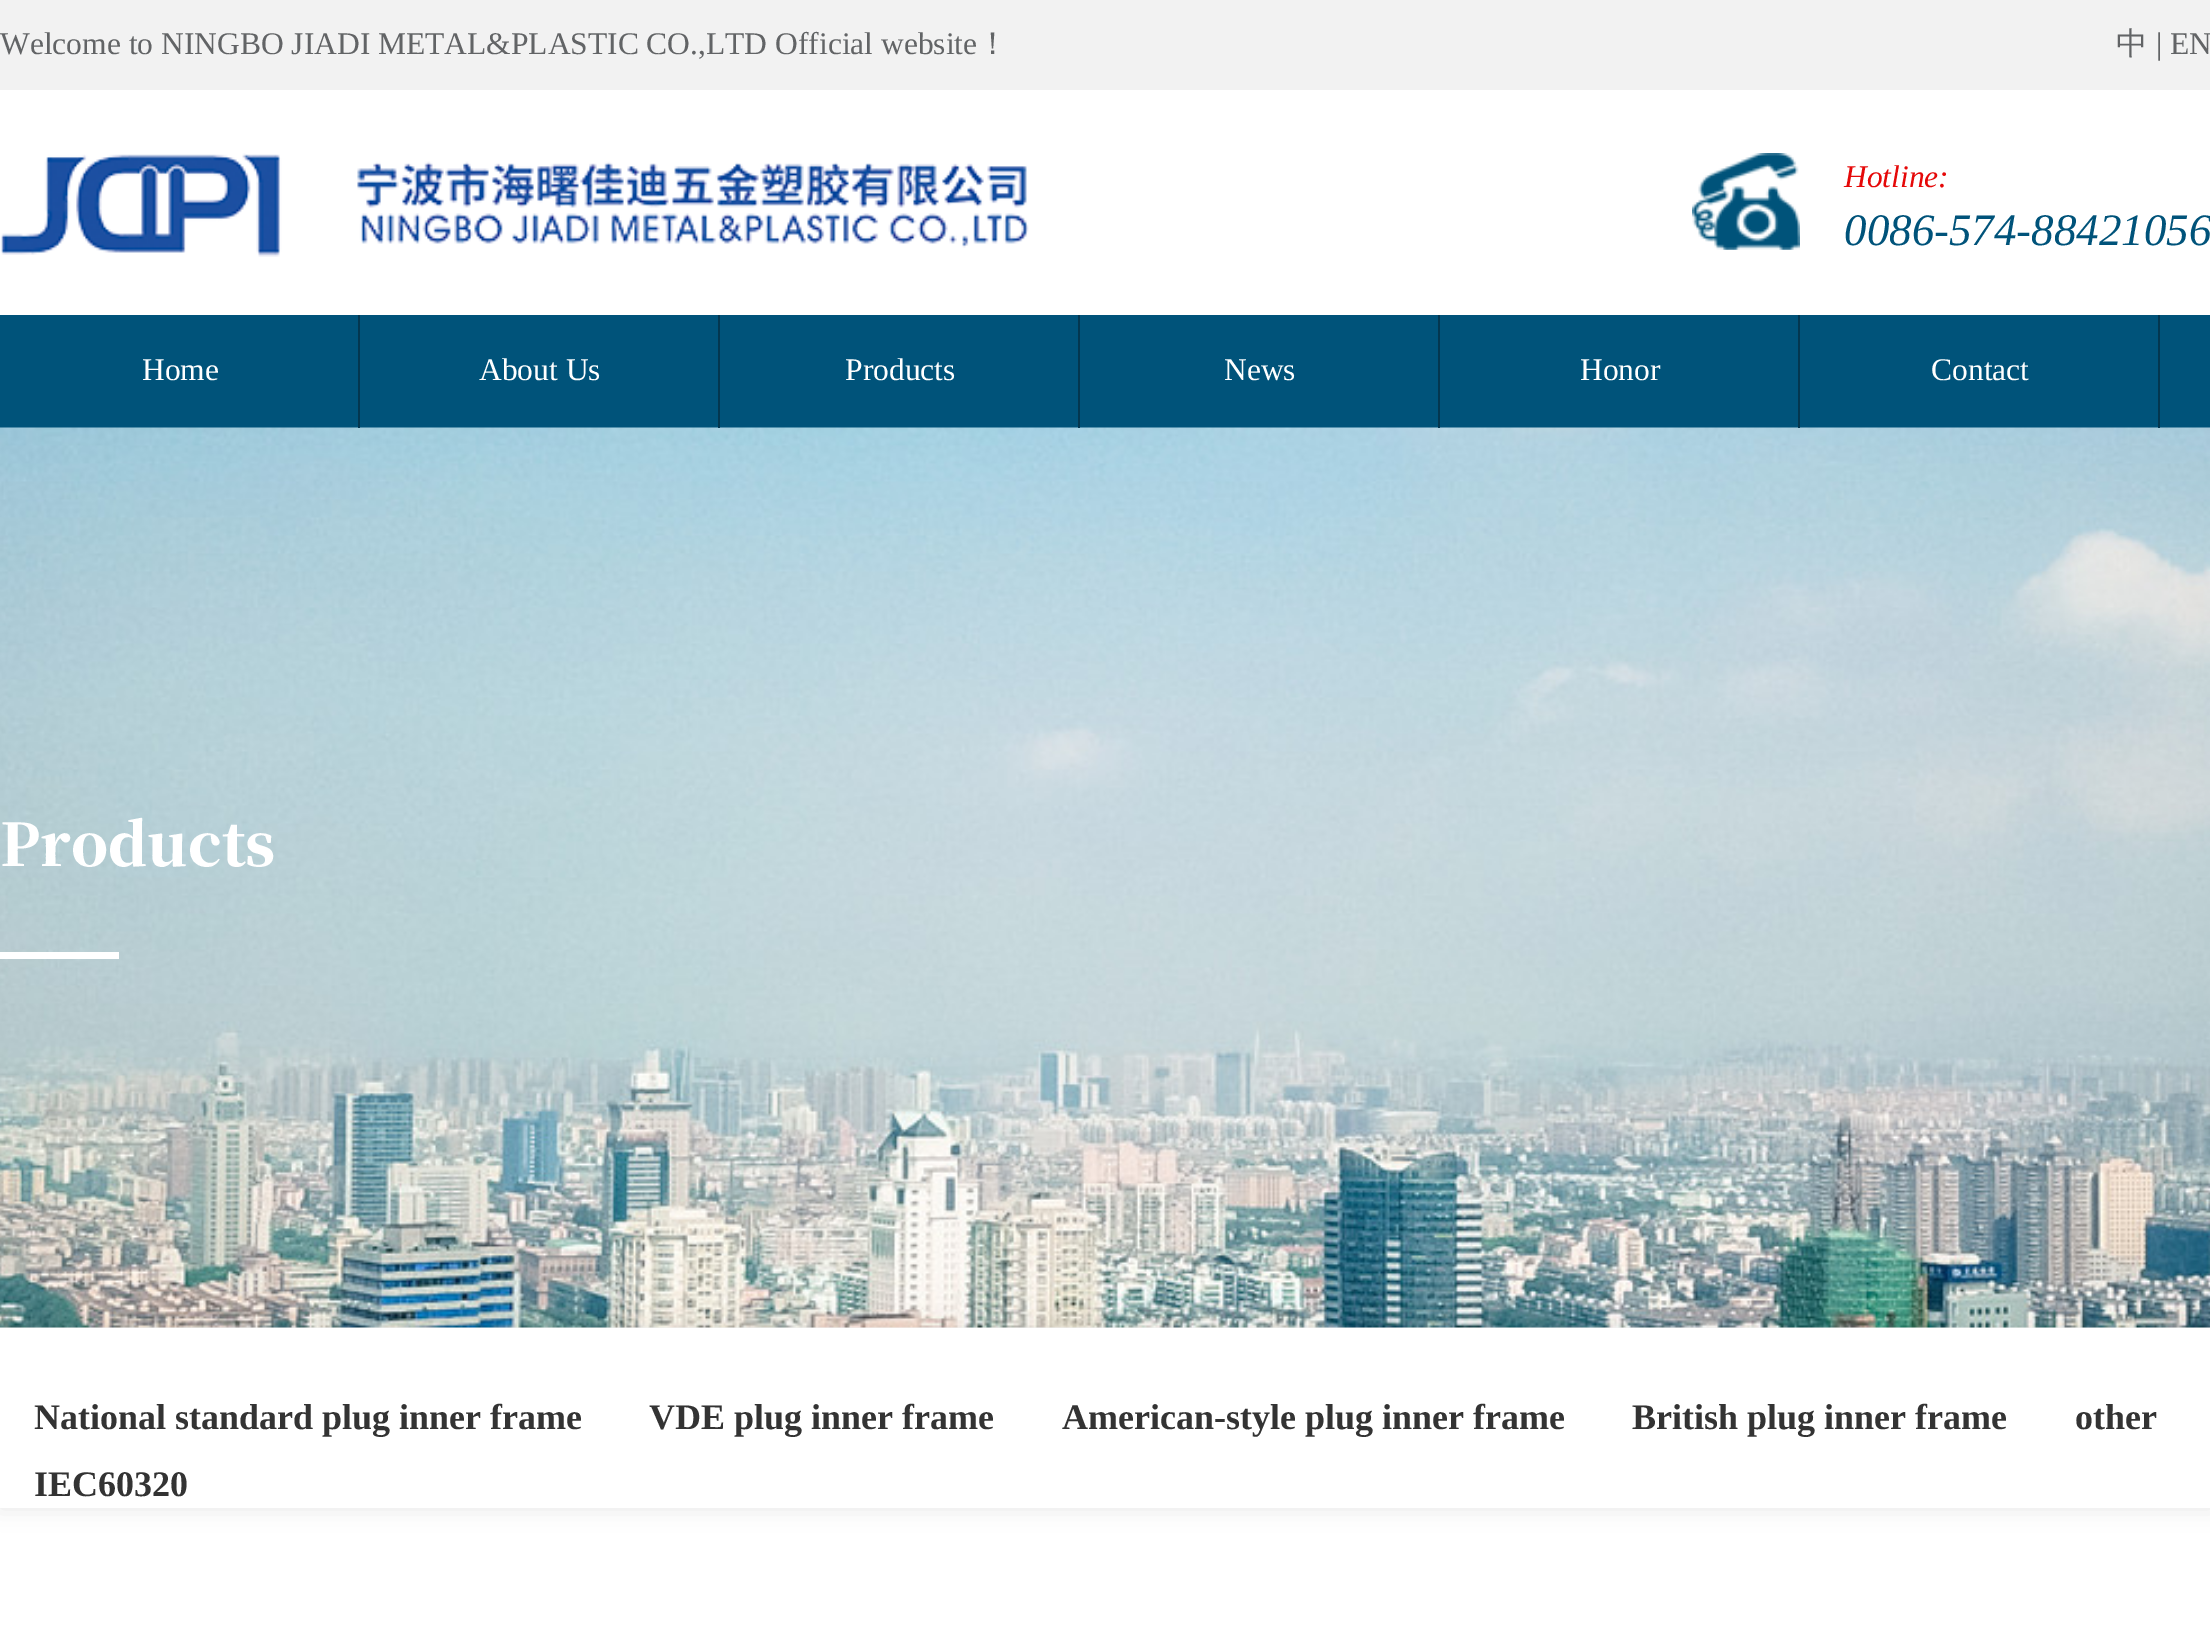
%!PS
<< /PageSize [2210 1642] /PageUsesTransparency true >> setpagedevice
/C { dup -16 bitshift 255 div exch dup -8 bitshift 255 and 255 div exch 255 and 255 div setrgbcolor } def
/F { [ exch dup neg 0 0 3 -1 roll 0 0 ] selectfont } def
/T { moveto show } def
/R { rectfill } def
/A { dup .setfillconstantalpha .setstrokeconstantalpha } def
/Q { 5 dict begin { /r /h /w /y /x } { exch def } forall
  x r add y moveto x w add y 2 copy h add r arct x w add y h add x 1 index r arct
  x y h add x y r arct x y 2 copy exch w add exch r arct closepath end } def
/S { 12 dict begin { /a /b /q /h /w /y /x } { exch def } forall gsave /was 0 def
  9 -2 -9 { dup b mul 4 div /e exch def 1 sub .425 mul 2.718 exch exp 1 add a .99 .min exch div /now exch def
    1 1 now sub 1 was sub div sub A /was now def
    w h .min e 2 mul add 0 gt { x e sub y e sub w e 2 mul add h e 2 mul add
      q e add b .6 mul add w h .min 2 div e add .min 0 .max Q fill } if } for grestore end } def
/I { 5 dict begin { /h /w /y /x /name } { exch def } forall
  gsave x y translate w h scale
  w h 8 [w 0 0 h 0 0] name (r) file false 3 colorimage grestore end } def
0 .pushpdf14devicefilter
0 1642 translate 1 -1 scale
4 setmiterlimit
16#FFFFFF C
0 0 2210 1642 R
16#F2F2F2 C
0 0 2210 90 R
/LiberationSerif-Regular 31.5 F
16#626466 C
(Welcome to NINGBO JIADI METAL&PLASTIC CO.,LTD Official website) 0 54 T
/WenQuanYiZenHei-Medium 31.5 F
(！) 977 54 T
(中) 2116 54 T
/LiberationSerif-Regular 31.5 F
(| EN) 2156 54 T
(1.rgb) 0 153 1029 104 I
(2.rgb) 1692 153 108 97 I
/LiberationSerif-Italic 31.5 F
16#E50808 C
(Hotline:) 1844 187 T
/LiberationSerif-Italic 45 F
16#00537A C
(0086-574-88421056) 1844 245 T
0 315 2210 113 R
(3.rgb) 0 427 2210 901 I
16#033750 C
358 315 2 113 R
/LiberationSerif-Regular 31.5 F
16#FFFFFF C
(Home) 142 380 T
16#033750 C
718 315 2 113 R
16#FFFFFF C
(About Us) 479 380 T
16#033750 C
1078 315 2 113 R
16#FFFFFF C
(Products) 845 380 T
16#033750 C
1438 315 2 113 R
16#FFFFFF C
(News) 1224 380 T
16#033750 C
1798 315 2 113 R
16#FFFFFF C
(Honor) 1580 380 T
16#033750 C
2158 315 2 113 R
16#FFFFFF C
(Contact) 1931 380 T
/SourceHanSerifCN-Black 58.5 F
(Products) 0 866 T
0 952 119 7 R
16#000000 C
0 1328 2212 180 0 11 .1 S
16#FFFFFF C
0 1328 2210 180 R
/LiberationSerif-Bold 36 F
16#333333 C
(National standard plug inner frame) 34 1429 T
(VDE plug inner frame) 649 1429 T
(American-style plug inner frame) 1062 1429 T
(British plug inner frame) 1632 1429 T
(other) 2075 1429 T
(IEC60320) 34 1496 T
.poppdf14devicefilter showpage
